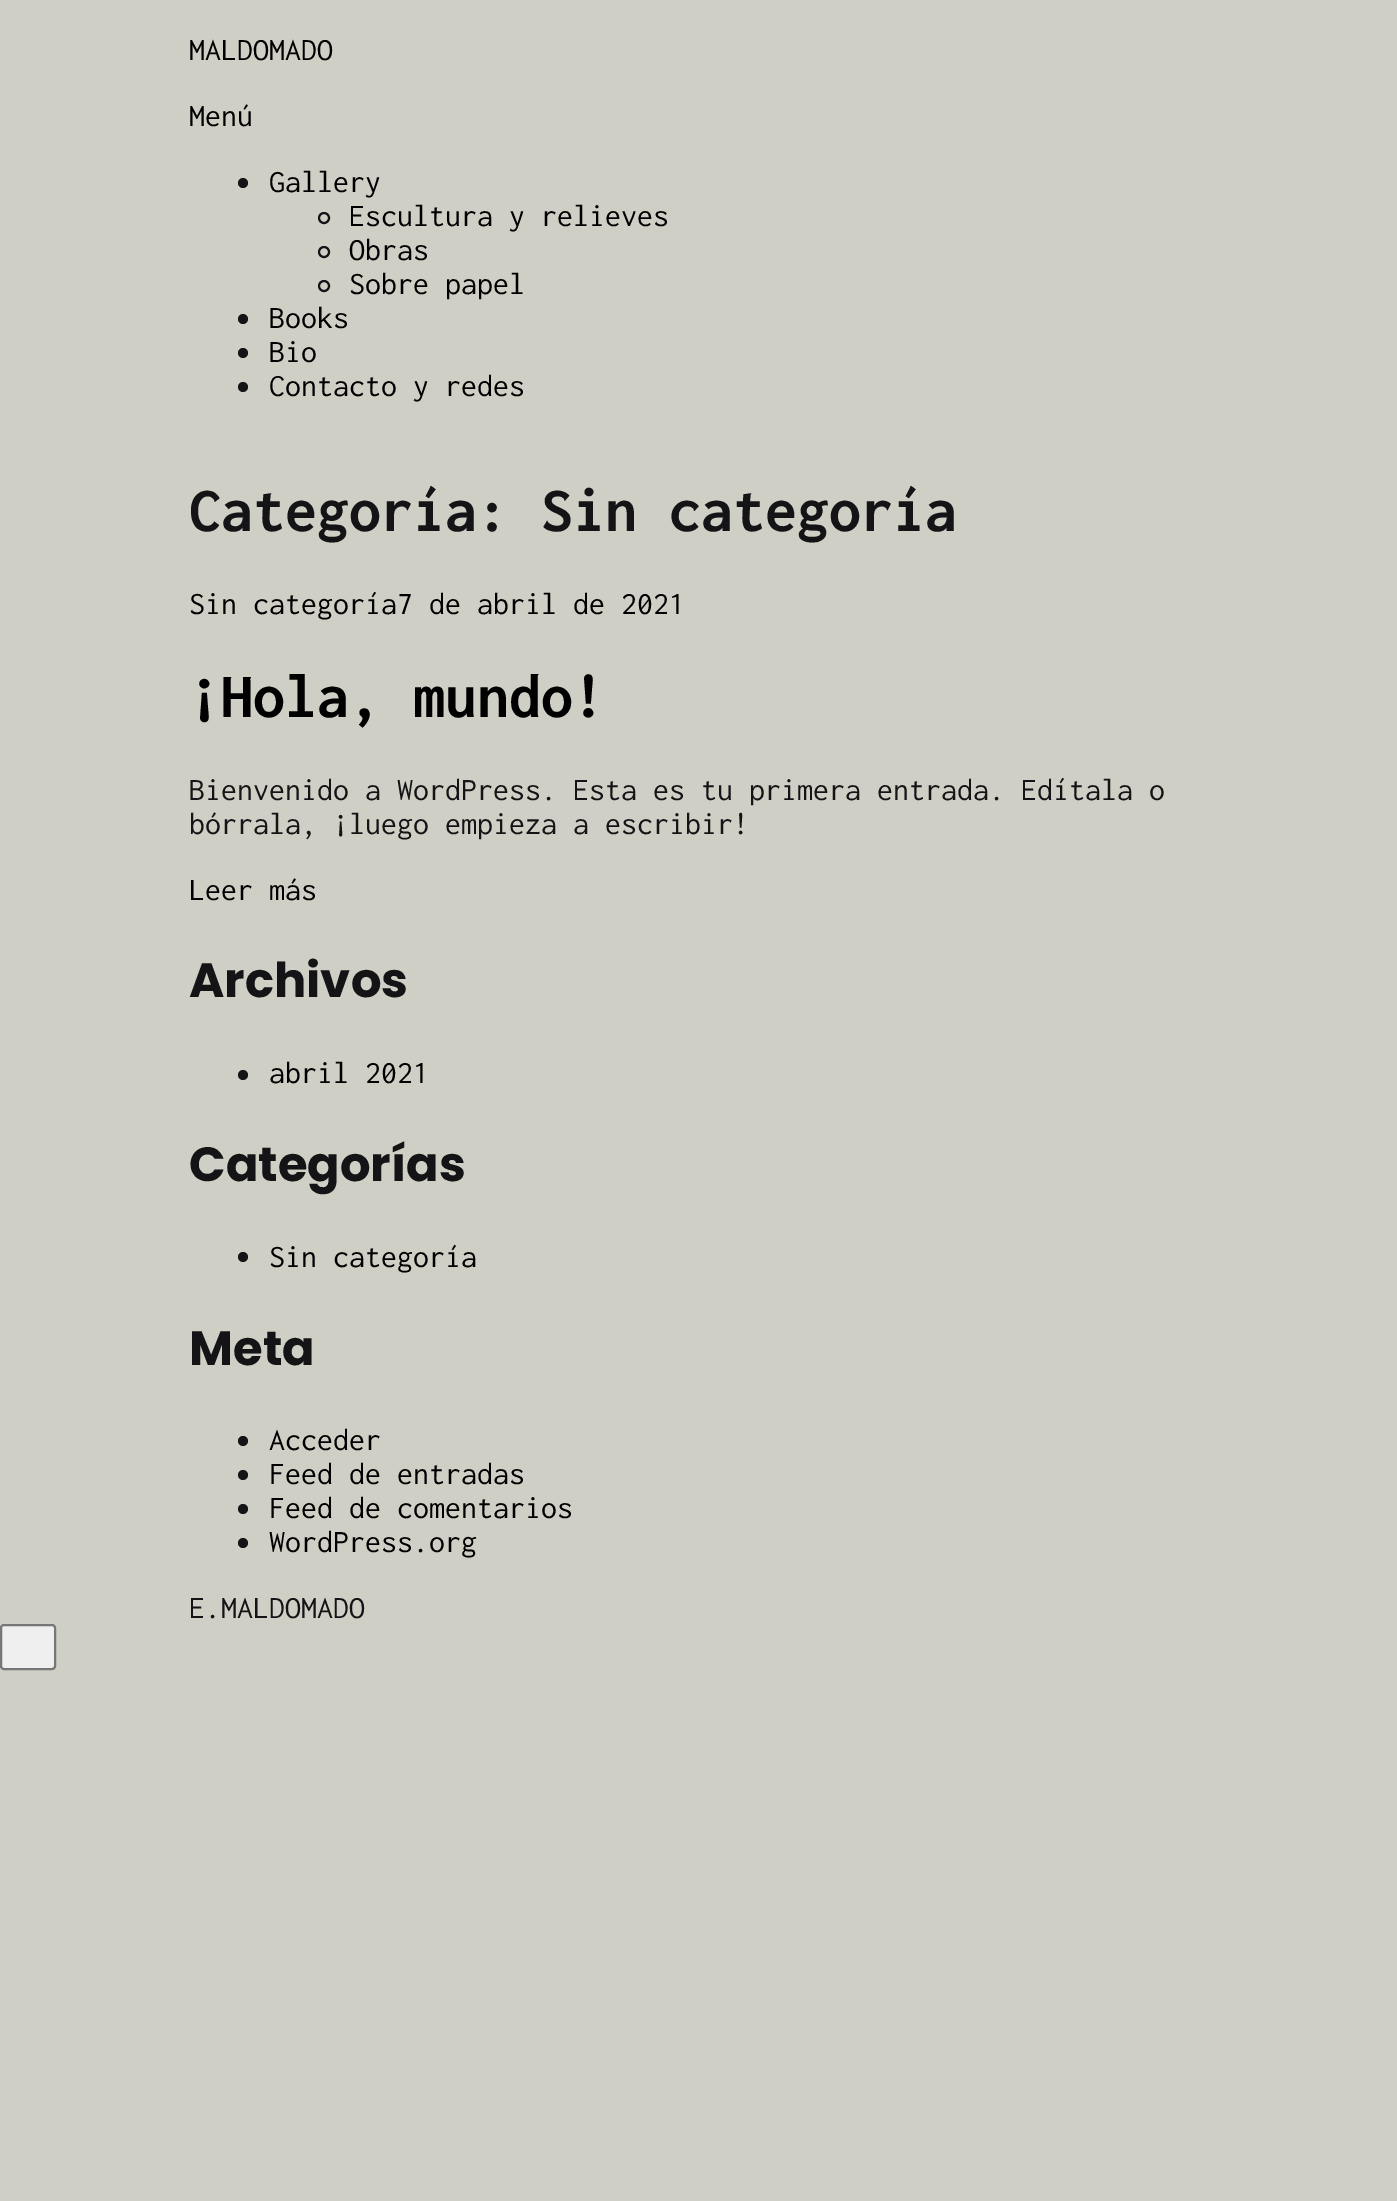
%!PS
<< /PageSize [1397 2201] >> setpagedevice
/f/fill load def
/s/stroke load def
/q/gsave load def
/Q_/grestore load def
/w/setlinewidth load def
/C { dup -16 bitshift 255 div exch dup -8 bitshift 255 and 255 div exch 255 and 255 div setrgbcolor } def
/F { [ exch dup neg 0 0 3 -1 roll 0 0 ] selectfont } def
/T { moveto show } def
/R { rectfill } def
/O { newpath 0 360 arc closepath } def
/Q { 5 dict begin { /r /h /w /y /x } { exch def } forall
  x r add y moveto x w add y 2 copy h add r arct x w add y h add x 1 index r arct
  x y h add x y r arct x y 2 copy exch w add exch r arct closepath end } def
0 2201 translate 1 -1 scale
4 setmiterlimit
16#D0CFC5 C
0 0 1397 2201 R
/Inconsolata-Regular 32 F
16#000000 C
(MALDOMADO) 189 60 T
(Menú) 189 126 T
16#141417 C
243 183 5 O f
16#000000 C
(Gallery) 269 192 T
16#141417 C
2 w
324 218 5 O s
16#000000 C
(Escultura y relieves) 349 226 T
16#141417 C
324 252 5 O s
16#000000 C
(Obras) 349 260 T
16#141417 C
324 286 5 O s
16#000000 C
(Sobre papel) 349 294 T
16#141417 C
243 319 5 O f
16#000000 C
(Books) 269 328 T
16#141417 C
243 353 5 O f
16#000000 C
(Bio) 269 362 T
16#141417 C
243 387 5 O f
16#000000 C
(Contacto y redes) 269 396 T
/Inconsolata-Bold 64 F
16#141417 C
(Categoría: Sin categoría) 189 531 T
/Inconsolata-Regular 32 F
16#000000 C
(Sin categoría7 de abril de 2021) 189 614 T
/Inconsolata-Bold 64 F
(¡Hola, mundo!) 189 717 T
/Inconsolata-Regular 32 F
16#141417 C
(Bienvenido a WordPress. Esta es tu primera entrada. Edítala o) 189 800 T
(bórrala, ¡luego empieza a escribir!) 189 834 T
16#000000 C
(Leer más) 189 900 T
/Poppins-Bold 48 F
16#141417 C
(Archivos) 189 997 T
243 1075 5 O f
/Inconsolata-Regular 32 F
16#000000 C
(abril 2021) 269 1083 T
/Poppins-Bold 48 F
16#141417 C
(Categorías) 189 1181 T
243 1257 5 O f
/Inconsolata-Regular 32 F
16#000000 C
(Sin categoría) 269 1267 T
/Poppins-Bold 48 F
16#141417 C
(Meta) 189 1365 T
243 1441 5 O f
/Inconsolata-Regular 32 F
16#000000 C
(Acceder) 269 1450 T
16#141417 C
243 1475 5 O f
16#000000 C
(Feed de entradas) 269 1484 T
16#141417 C
243 1509 5 O f
16#000000 C
(Feed de comentarios) 269 1518 T
16#141417 C
243 1543 5 O f
16#000000 C
(WordPress.org) 269 1552 T
16#141417 C
(E.MALDOMADO) 189 1618 T
16#EFEFEF C
1 1625 54 44 3 Q q f Q_
16#767676 C
s
showpage
